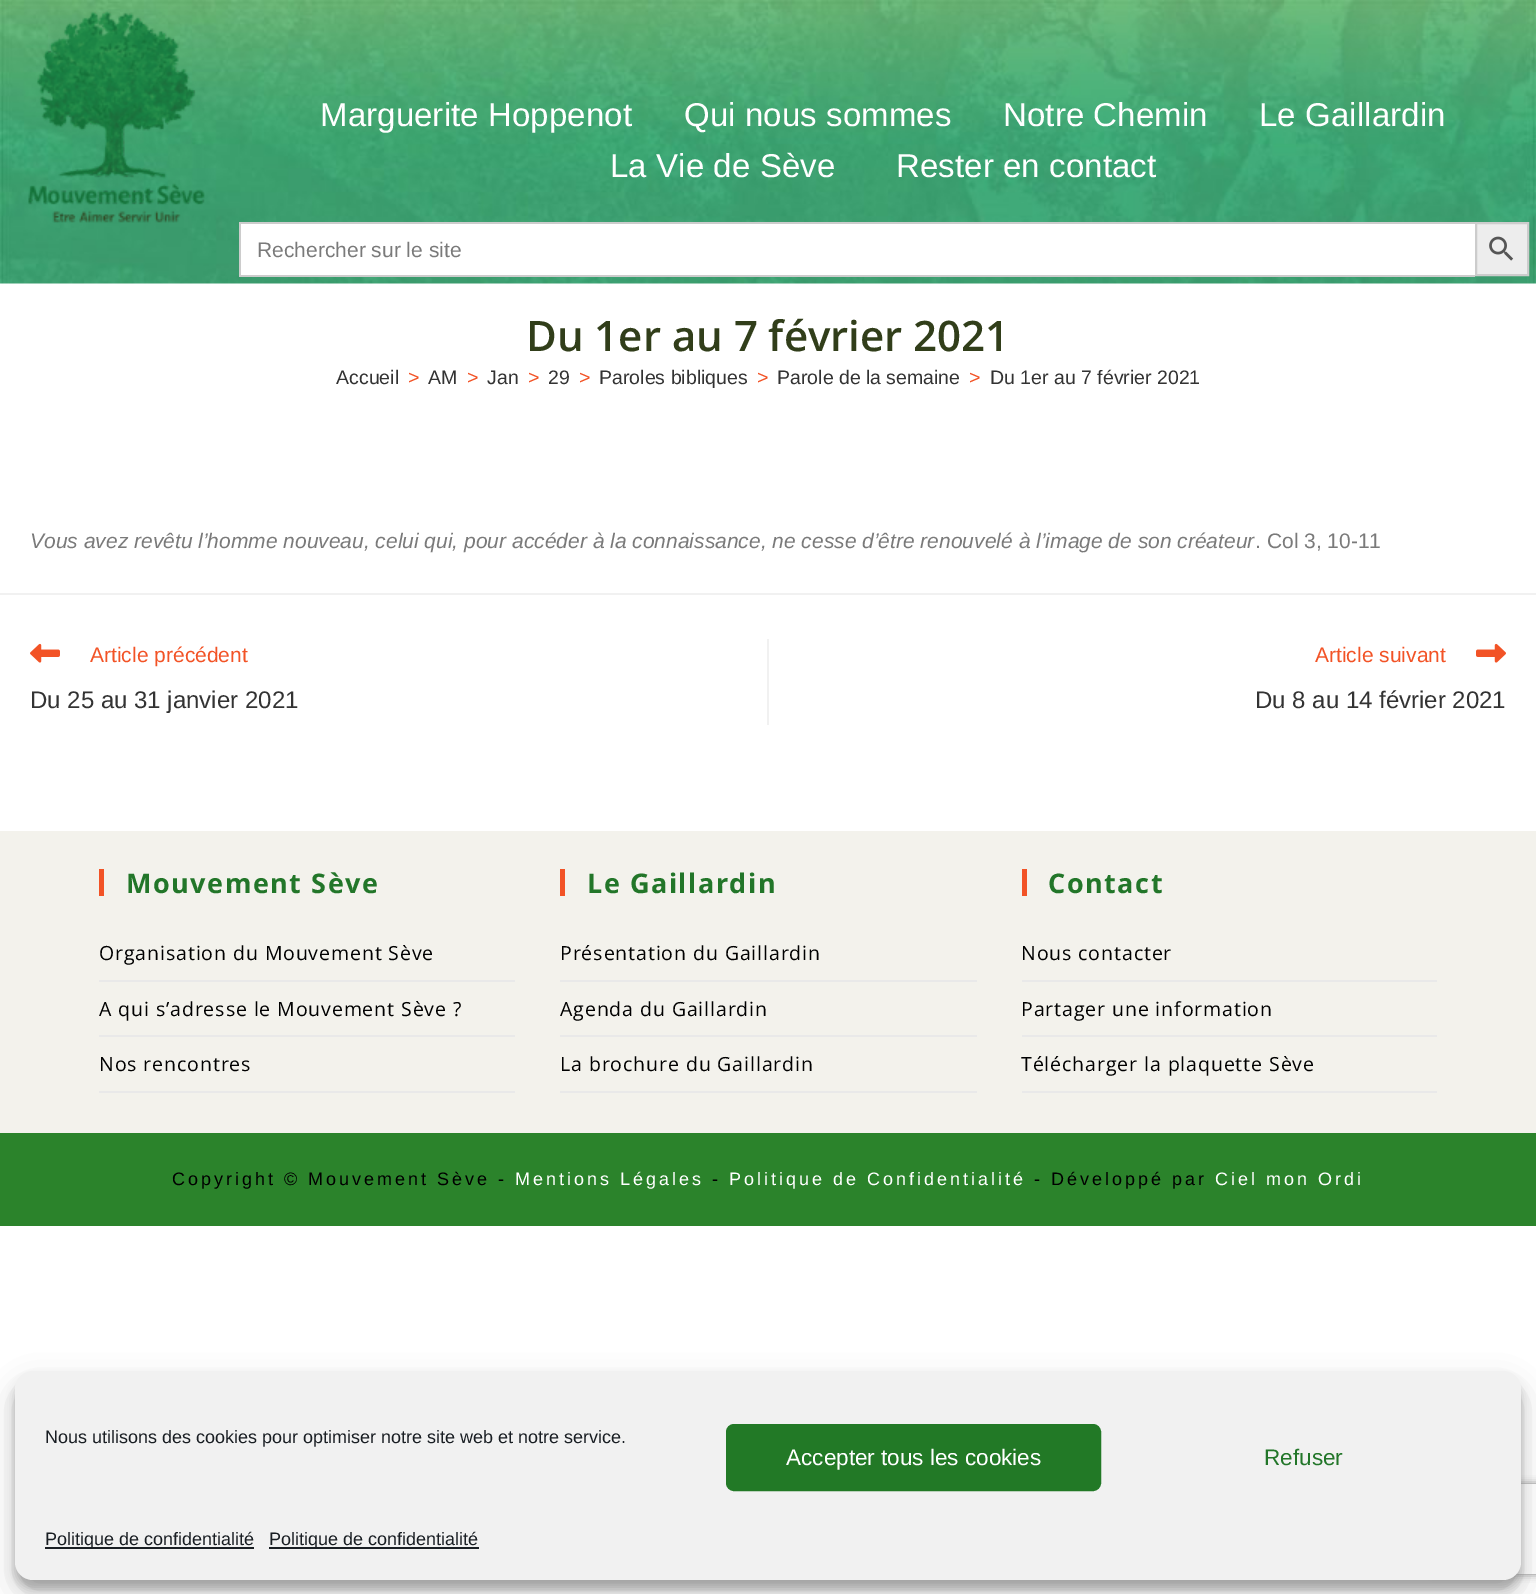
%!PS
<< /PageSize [1536 1594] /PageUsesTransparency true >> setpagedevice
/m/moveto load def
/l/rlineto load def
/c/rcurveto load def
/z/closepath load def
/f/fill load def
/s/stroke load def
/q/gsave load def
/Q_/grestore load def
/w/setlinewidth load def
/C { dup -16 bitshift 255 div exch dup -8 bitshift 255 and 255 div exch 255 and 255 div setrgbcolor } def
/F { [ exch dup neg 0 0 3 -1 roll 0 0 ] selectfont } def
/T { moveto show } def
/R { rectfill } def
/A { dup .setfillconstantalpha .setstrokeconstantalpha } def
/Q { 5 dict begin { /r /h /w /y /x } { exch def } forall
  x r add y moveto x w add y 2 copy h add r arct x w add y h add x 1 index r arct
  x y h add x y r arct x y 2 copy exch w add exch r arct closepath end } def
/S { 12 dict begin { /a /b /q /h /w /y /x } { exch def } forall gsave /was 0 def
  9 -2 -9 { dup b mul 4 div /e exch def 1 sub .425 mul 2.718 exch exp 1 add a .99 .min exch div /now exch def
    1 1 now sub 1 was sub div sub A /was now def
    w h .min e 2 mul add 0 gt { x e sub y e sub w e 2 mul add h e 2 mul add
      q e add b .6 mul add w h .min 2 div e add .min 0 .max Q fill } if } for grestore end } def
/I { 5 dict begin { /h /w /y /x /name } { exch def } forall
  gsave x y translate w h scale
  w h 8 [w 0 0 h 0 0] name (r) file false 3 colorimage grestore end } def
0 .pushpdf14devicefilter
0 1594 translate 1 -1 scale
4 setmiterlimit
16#FFFFFF C
0 0 1536 1594 R
(1.rgb) 0 0 1536 284 I
(2.rgb) 28 10 177 213 I
/LiberationSans-Regular 33 F
320 126 m .1 0 (Marguerite Hoppenot) ashow
684 126 m .1 0 (Qui nous sommes) ashow
1003 126 m .1 0 (Notre Chemin) ashow
1259 126 m .1 0 (Le Gaillardin) ashow
610 177 m .1 0 (La Vie de Sève) ashow
896 177 m .1 0 (Rester en contact) ashow
241 224 1234 51 R
16#CCCCCC C
239 222 1236 2 R
239 275 1236 2 R
239 222 2 54 R
/LiberationSans-Regular 21 F
16#7A7A7A C
(Rechercher sur le site) 257 257 T
16#EDEDED C
1476 223 m 52 0 l 0 52 l -52 0 l z q f Q_
16#CCCCCC C
2 w
s
(3.rgb) 1489 236 25 25 I
/OpenSans-SemiBold 42 F
16#313E1A C
(Du 1er au 7 février 2021) 526 351 T
/LiberationSans-Regular 19.5 F
16#333333 C
(Accueil) 336 384 T
16#F25326 C
(>) 408 384 T
16#333333 C
(AM) 428 384 T
16#F25326 C
(>) 467 384 T
16#333333 C
(Jan) 487 384 T
16#F25326 C
(>) 528 384 T
16#333333 C
(29) 548 384 T
16#F25326 C
(>) 579 384 T
16#333333 C
(Paroles bibliques) 599 384 T
16#F25326 C
(>) 757 384 T
16#333333 C
(Parole de la semaine) 777 384 T
16#F25326 C
(>) 969 384 T
16#333333 C
(Du 1er au 7 février 2021) 990 384 T
/LiberationSans-Italic 21 F
16#7A7A7A C
(Vous avez revêtu l’homme nouveau, celui qui, pour accéder à la connaissance, ne cesse d’être renouvelé à l’image de son créateur) 30 548 T
/LiberationSans-Regular 21 F
(. Col 3, 10-11) 1255 548 T
16#F1F1F1 C
0 593 1536 2 R
767 639 2 86 R
(4.rgb) 30 643 30 20 I
16#F25326 C
(Article précédent) 90 662 T
/LiberationSans-Regular 24 F
16#333333 C
(Du 25 au 31 janvier 2021) 30 708 T
/LiberationSans-Regular 21 F
16#F25326 C
(Article suivant) 1315 662 T
(5.rgb) 1476 643 30 20 I
/LiberationSans-Regular 24 F
16#333333 C
(Du 8 au 14 février 2021) 1255 708 T
16#F3F2EC C
0 831 1536 302 R
16#F25326 C
99 869 5 27 R
/OpenSans-Bold 27 F
16#227629 C
126 893 m 1.5 0 (Mouvement Sève) ashow
16#E9E9E9 C
99 980 416 2 R
/OpenSans-Regular 19.5 F
16#000000 C
99 960 m .9 0 (Organisation du Mouvement Sève) ashow
16#E9E9E9 C
99 1035 416 2 R
16#000000 C
99 1016 m .9 0 (A qui s’adresse le Mouvement Sève ?) ashow
16#E9E9E9 C
99 1091 416 2 R
16#000000 C
99 1071 m .9 0 (Nos rencontres) ashow
16#F25326 C
560 869 5 27 R
/OpenSans-Bold 27 F
16#227629 C
587 893 m 1.5 0 (Le Gaillardin) ashow
16#E9E9E9 C
560 980 417 2 R
/OpenSans-Regular 19.5 F
16#000000 C
560 960 m .9 0 (Présentation du Gaillardin) ashow
16#E9E9E9 C
560 1035 417 2 R
16#000000 C
560 1016 m .9 0 (Agenda du Gaillardin) ashow
16#E9E9E9 C
560 1091 417 2 R
16#000000 C
560 1071 m .9 0 (La brochure du Gaillardin) ashow
16#F25326 C
1022 869 5 27 R
/OpenSans-Bold 27 F
16#227629 C
1048 893 m 1.5 0 (Contact) ashow
16#E9E9E9 C
1022 980 415 2 R
/OpenSans-Regular 19.5 F
16#000000 C
1021 960 m .9 0 (Nous contacter) ashow
16#E9E9E9 C
1022 1035 415 2 R
16#000000 C
1021 1016 m .9 0 (Partager une information) ashow
16#E9E9E9 C
1022 1091 415 2 R
16#000000 C
1021 1071 m .9 0 (Télécharger la plaquette Sève) ashow
16#2B832B C
0 1133 1536 93 R
/LiberationSans-Regular 18 F
16#000000 C
172 1185 m 3 0 (Copyright © Mouvement Sève -) ashow
16#FFFFFF C
515 1185 m 3 0 (Mentions Légales) ashow
16#000000 C
712 1185 m 3 0 (-) ashow
16#FFFFFF C
729 1185 m 3 0 (Politique de Confidentialité) ashow
16#000000 C
1034 1185 m 3 0 (- Développé par) ashow
16#FFFFFF C
1215 1185 m 3 0 (Ciel mon Ordi) ashow
16#000000 C
15 1380 1506 209 18 4.5 .23 S
15 1386 1506 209 18 15 .19 S
q
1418 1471 m 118 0 l 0 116 l -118 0 l z 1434 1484 m 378 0 l 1.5 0 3 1.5 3 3 c 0 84 l 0 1.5 -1.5 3 -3 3 c -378 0 l -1.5 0 -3 -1.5 -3 -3 c 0 -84 l 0 -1.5 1.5 -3 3 -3 c z eoclip newpath
16#808080 C
1431 1484 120 90 3 4 1 S
Q_
16#F1F1F1 C
15 1371 1506 209 18 Q f
16#191E23 C
(Nous utilisons des cookies pour optimiser notre site web et notre service.) 45 1443 T
16#227926 C
727 1425 373 65 7 Q q f Q_
s
/LiberationSans-Regular 22.5 F
16#FFFFFF C
(Accepter tous les cookies) 786 1465 T
16#227629 C
(Refuser) 1264 1465 T
16#191E23 C
45 1547 209 2 R
/LiberationSans-Regular 18 F
(Politique de confidentialité) 45 1545 T
269 1547 210 2 R
(Politique de confidentialité) 269 1545 T
.poppdf14devicefilter showpage
